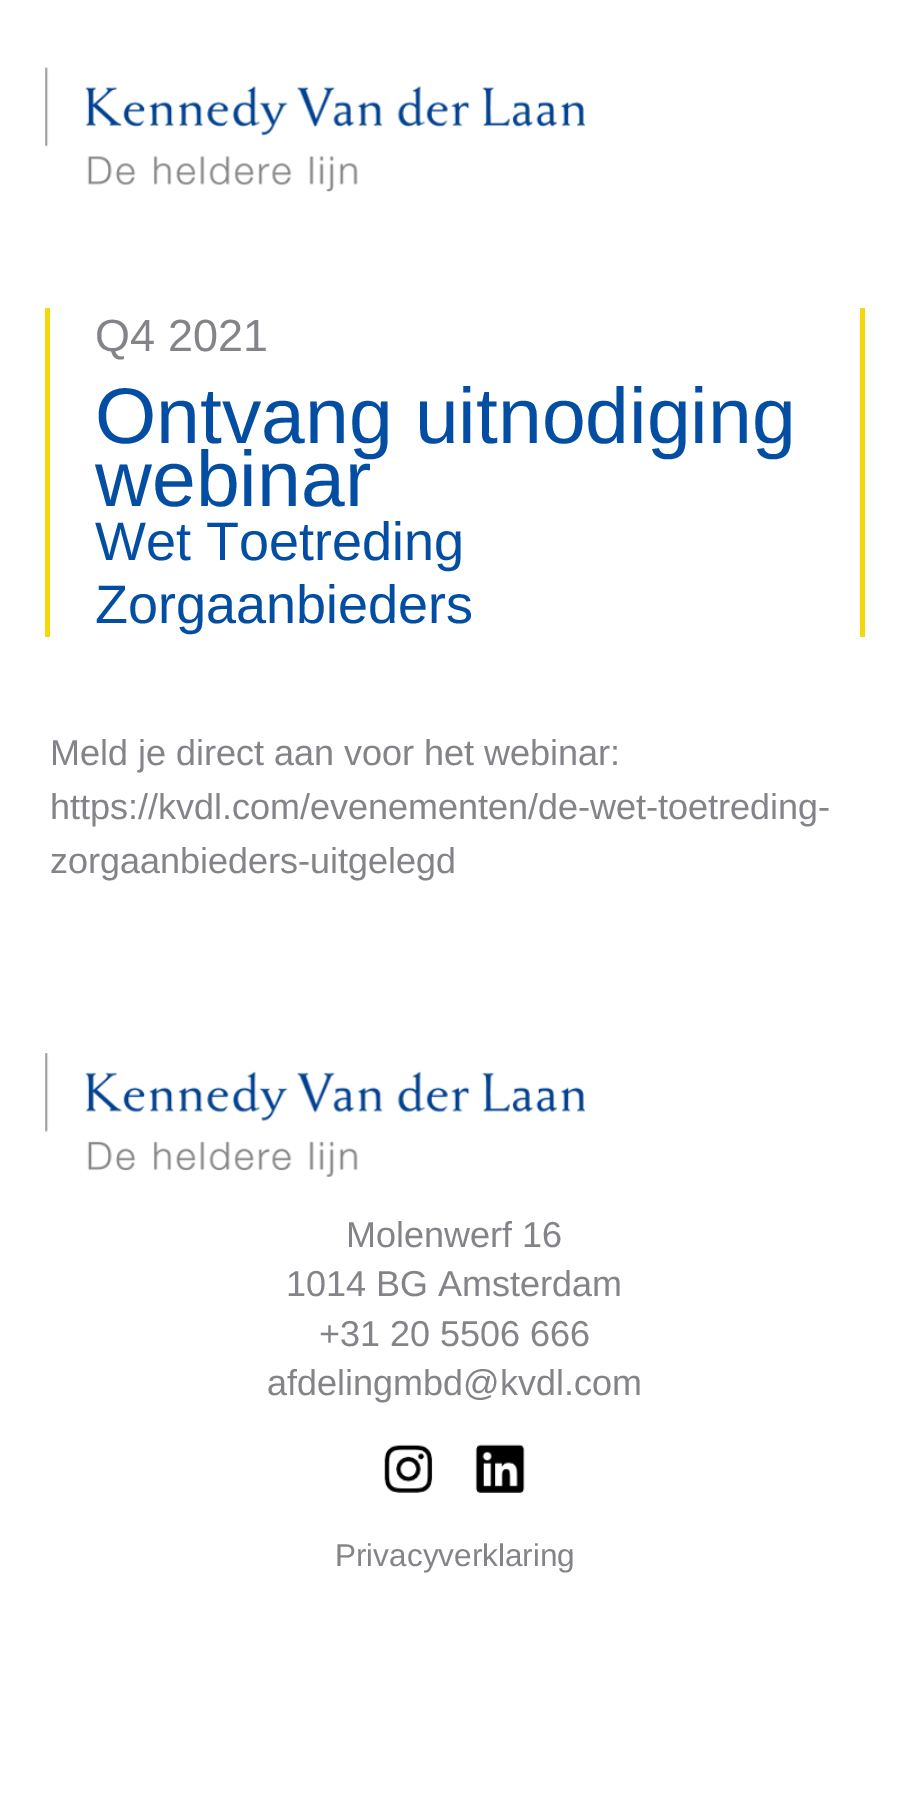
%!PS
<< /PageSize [907 1815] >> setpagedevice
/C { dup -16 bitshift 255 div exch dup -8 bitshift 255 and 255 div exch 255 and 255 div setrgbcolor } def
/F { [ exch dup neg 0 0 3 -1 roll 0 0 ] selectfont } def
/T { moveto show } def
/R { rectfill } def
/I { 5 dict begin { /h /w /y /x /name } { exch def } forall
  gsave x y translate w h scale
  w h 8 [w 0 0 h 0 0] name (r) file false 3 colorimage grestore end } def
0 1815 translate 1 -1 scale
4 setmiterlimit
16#FFFFFF C
0 0 907 1815 R
(1.rgb) 45 67 540 125 I
16#F6D809 C
45 308 5 329 R
/LiberationSans-Regular 45 F
16#848389 C
(Q4 2021) 95 351 T
/LiberationSans-Regular 78.75 F
16#034EA2 C
(Ontvang uitnodiging) 95 443 T
(webinar) 95 506 T
/LiberationSans-Regular 54 F
(Wet Toetreding) 95 560 T
(Zorgaanbieders) 95 623 T
16#F6D809 C
860 308 5 329 R
/LiberationSans-Regular 36 F
16#848389 C
(Meld je direct aan voor het webinar:) 50 765 T
(https://kvdl.com/evenementen/de-wet-toetreding-) 50 819 T
(zorgaanbieders-uitgelegd) 50 873 T
(2.rgb) 45 1053 540 124 I
(Molenwerf 16) 346 1247 T
(1014 BG Amsterdam) 286 1296 T
(+31 20 5506 666) 319 1346 T
(afdelingmbd@kvdl.com) 267 1395 T
(3.rgb) 384 1444 49 49 I
(4.rgb) 475 1444 50 49 I
/LiberationSans-Regular 31.5 F
(Privacyverklaring) 335 1566 T
showpage
